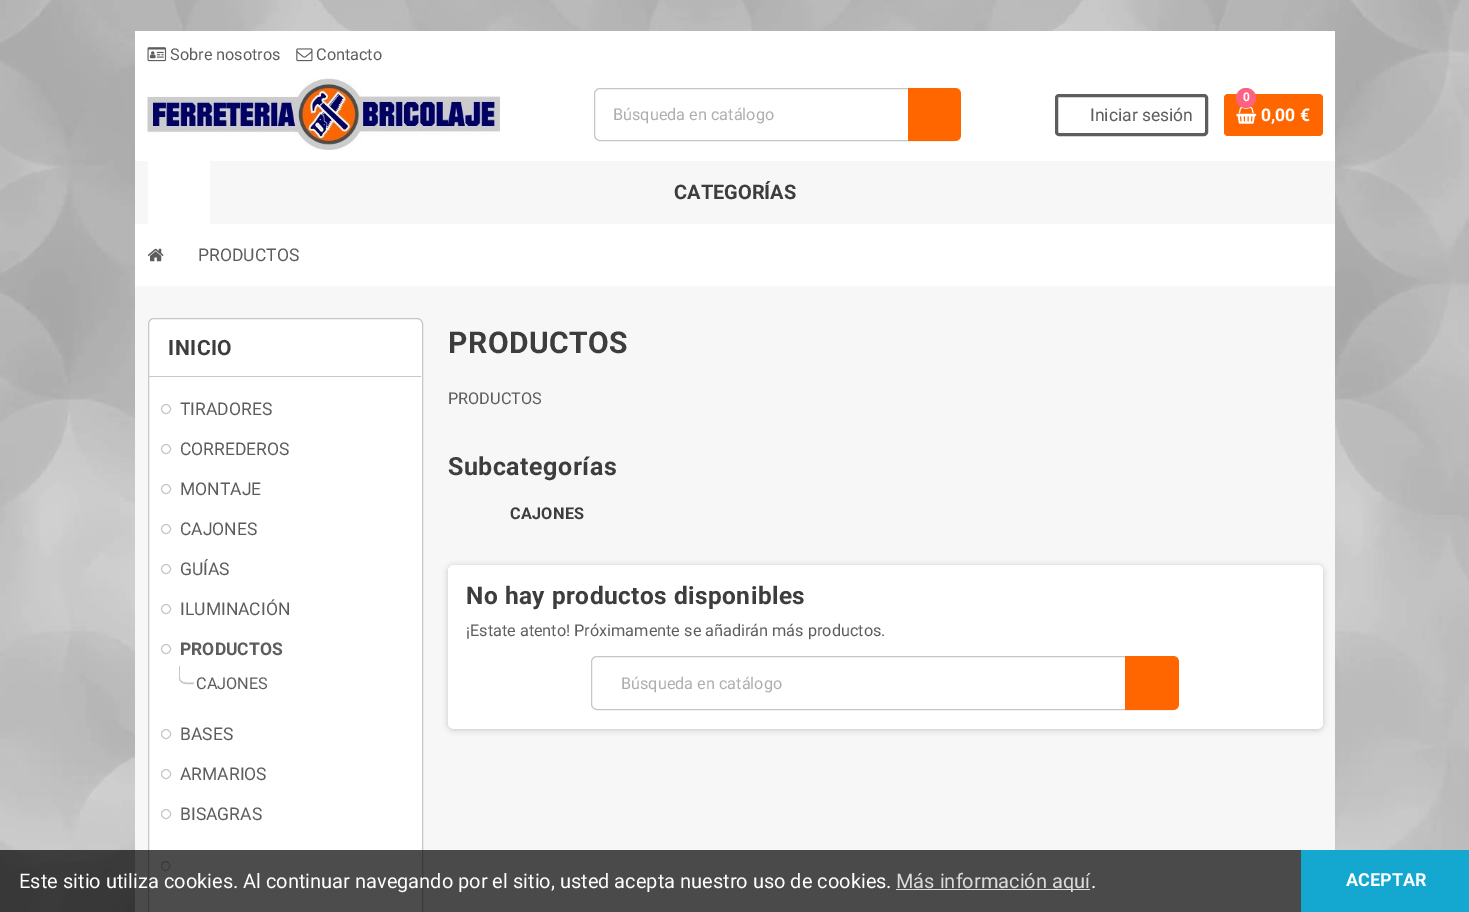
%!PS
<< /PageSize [1469 912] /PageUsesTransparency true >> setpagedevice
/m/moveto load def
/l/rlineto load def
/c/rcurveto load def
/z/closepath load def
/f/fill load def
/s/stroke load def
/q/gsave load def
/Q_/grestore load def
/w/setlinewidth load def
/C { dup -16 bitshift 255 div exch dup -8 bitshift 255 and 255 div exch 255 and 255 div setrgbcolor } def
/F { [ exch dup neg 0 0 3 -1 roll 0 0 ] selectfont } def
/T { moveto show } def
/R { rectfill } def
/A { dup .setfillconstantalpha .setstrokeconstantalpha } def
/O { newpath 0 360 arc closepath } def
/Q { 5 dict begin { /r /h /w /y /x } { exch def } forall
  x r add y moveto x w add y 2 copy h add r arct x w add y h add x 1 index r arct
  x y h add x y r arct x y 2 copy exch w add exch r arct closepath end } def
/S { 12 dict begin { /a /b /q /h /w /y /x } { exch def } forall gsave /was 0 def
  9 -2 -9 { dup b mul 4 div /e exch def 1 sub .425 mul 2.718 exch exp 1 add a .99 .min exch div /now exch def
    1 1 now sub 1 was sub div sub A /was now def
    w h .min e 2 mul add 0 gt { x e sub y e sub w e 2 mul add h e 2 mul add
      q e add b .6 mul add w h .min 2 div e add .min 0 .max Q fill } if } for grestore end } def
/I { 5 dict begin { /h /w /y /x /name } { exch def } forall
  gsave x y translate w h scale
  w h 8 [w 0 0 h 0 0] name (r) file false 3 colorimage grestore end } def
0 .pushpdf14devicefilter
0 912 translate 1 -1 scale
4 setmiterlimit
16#FFFFFF C
0 0 1469 912 R
(1.rgb) 0 0 1469 912 I
135 31 1200 130 R
(2.rgb) 147 47 20 15 I
/Roboto-Regular 16.25 F
16#5D5D5D C
(Sobre nosotros) 170 60 T
(3.rgb) 296 48 17 14 I
(Contacto) 316 60 T
(4.rgb) 147 78 353 72 I
16#C7C7C7 C
594.5 88.5 365 52 5.5 Q s
16#AEAEAE C
(Búsqueda en catálogo) 613 120 T
16#FF6600 C
908 88 m 47 0 l 3.5 0 6 2.5 6 6 c 0 41 l 0 3.5 -2.5 6 -6 6 c -47 0 l z f
16#5D5D5D C
3 w
1056.5 95.5 150 39 2.5 Q s
/Roboto-Regular 17.5 F
(Iniciar sesión) 1090 121 T
16#FF6600 C
1224 94 99 42 4 Q f
(5.rgb) 1236 106 21 18 I
16#FD6282 C
1246 98 10 O f
/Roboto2-Bold 12 F
16#FFFFFF C
(0) 1243 101 T
/Roboto2-Bold 17.5 F
(0,00 €) 1261 121 T
16#F7F7F7 C
135 161 1200 63 R
16#FFFFFF C
148 161 62 63 R
/Roboto-Bold 20 F
16#3D3D3D C
(CATEGORÍAS) 674 199 T
16#F7F7F7 C
135 286 1200 626 R
16#FFFFFF C
135 224 1200 62 R
(6.rgb) 147 248 17 14 I
/Roboto-Regular 17.5 F
16#5D5D5D C
(PRODUCTOS) 198 261 T
16#FFFFFF C
148.5 318.5 274 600 5.5 Q q f Q_
16#C7C7C7 C
1 w
s
149 376 272 1 R
/Roboto-Bold 21 F
16#3D3D3D C
168 355 m .5 0 (INICIO) ashow
16#C7C7C7 C
166 409 4.5 O s
/Roboto-Regular 17.5 F
16#5D5D5D C
(TIRADORES) 180 415 T
16#C7C7C7 C
166 449 4.5 O s
16#5D5D5D C
(CORREDEROS) 180 455 T
16#C7C7C7 C
166 489 4.5 O s
16#5D5D5D C
(MONTAJE) 180 495 T
16#C7C7C7 C
166 529 4.5 O s
16#5D5D5D C
(CAJONES) 180 535 T
16#C7C7C7 C
166 569 4.5 O s
16#5D5D5D C
(GUÍAS) 180 575 T
16#C7C7C7 C
166 609 4.5 O s
16#5D5D5D C
(ILUMINACIÓN) 180 615 T
16#C7C7C7 C
166 649 4.5 O s
/Roboto2-Bold 17.5 F
16#5D5D5D C
(PRODUCTOS) 180 655 T
16#C7C7C7 C
179 666 m 15 0 l 0 18 l -5.5 0 -15 1.5 -15 -6.5 c z 180 666 m 14 0 l 0 16.5 l -4.5 0 -14 1.5 -14 -5 c z eofill
/Roboto-Regular 16.25 F
16#5D5D5D C
(CAJONES) 196 689 T
16#C7C7C7 C
166 734 4.5 O s
/Roboto-Regular 17.5 F
16#5D5D5D C
(BASES) 180 740 T
16#C7C7C7 C
166 774 4.5 O s
16#5D5D5D C
(ARMARIOS) 180 780 T
16#C7C7C7 C
166 814 4.5 O s
16#5D5D5D C
(BISAGRAS) 180 820 T
16#C7C7C7 C
161.5 861.5 8 9 4 Q s
/Roboto-Bold 30 F
16#3D3D3D C
448 353 m .5 0 (PRODUCTOS) ashow
/Roboto-Regular 16.25 F
16#5D5D5D C
(PRODUCTOS) 448 404 T
/Roboto-Bold 25 F
16#3D3D3D C
448 475 m .5 0 (Subcategorías) ashow
/Roboto-Bold 16.25 F
510 519 m .25 0 (CAJONES) ashow
16#000000 C
448 566 875 164 6 3 .2 S
16#FFFFFF C
448 565 875 164 6 Q f
/Roboto-Bold 24.4 F
16#3D3D3D C
466 604 m .5 0 (No hay productos disponibles) ashow
/Roboto-Regular 16.25 F
16#5D5D5D C
(¡Estate atento! Próximamente se añadirán más productos.) 466 636 T
16#C7C7C7 C
591.5 656.5 586 53 5.5 Q s
16#AEAEAE C
(Búsqueda en catálogo) 621 689 T
16#FF6600 C
1125 656 m 48 0 l 3.5 0 6 2.5 6 6 c 0 42 l 0 3.5 -2.5 6 -6 6 c -48 0 l z f
0.7 A
16#000000 C
0 850 1301 62 R
/Roboto-Regular 20 F
1 A
16#FFFFFF C
(Este sitio utiliza cookies. Al continuar navegando por el sitio, usted acepta nuestro uso de cookies.) 19 888 T
16#DBDBDB C
896 889 194 1 R
16#FFFFFF C
(.) 1091 888 T
16#DBDBDB C
(Más información aquí) 896 888 T
16#14A7D0 C
1301 850 168 62 R
/Roboto2-Bold 18 F
16#FFFFFF C
(ACEPTAR) 1346 886 T
.poppdf14devicefilter showpage
